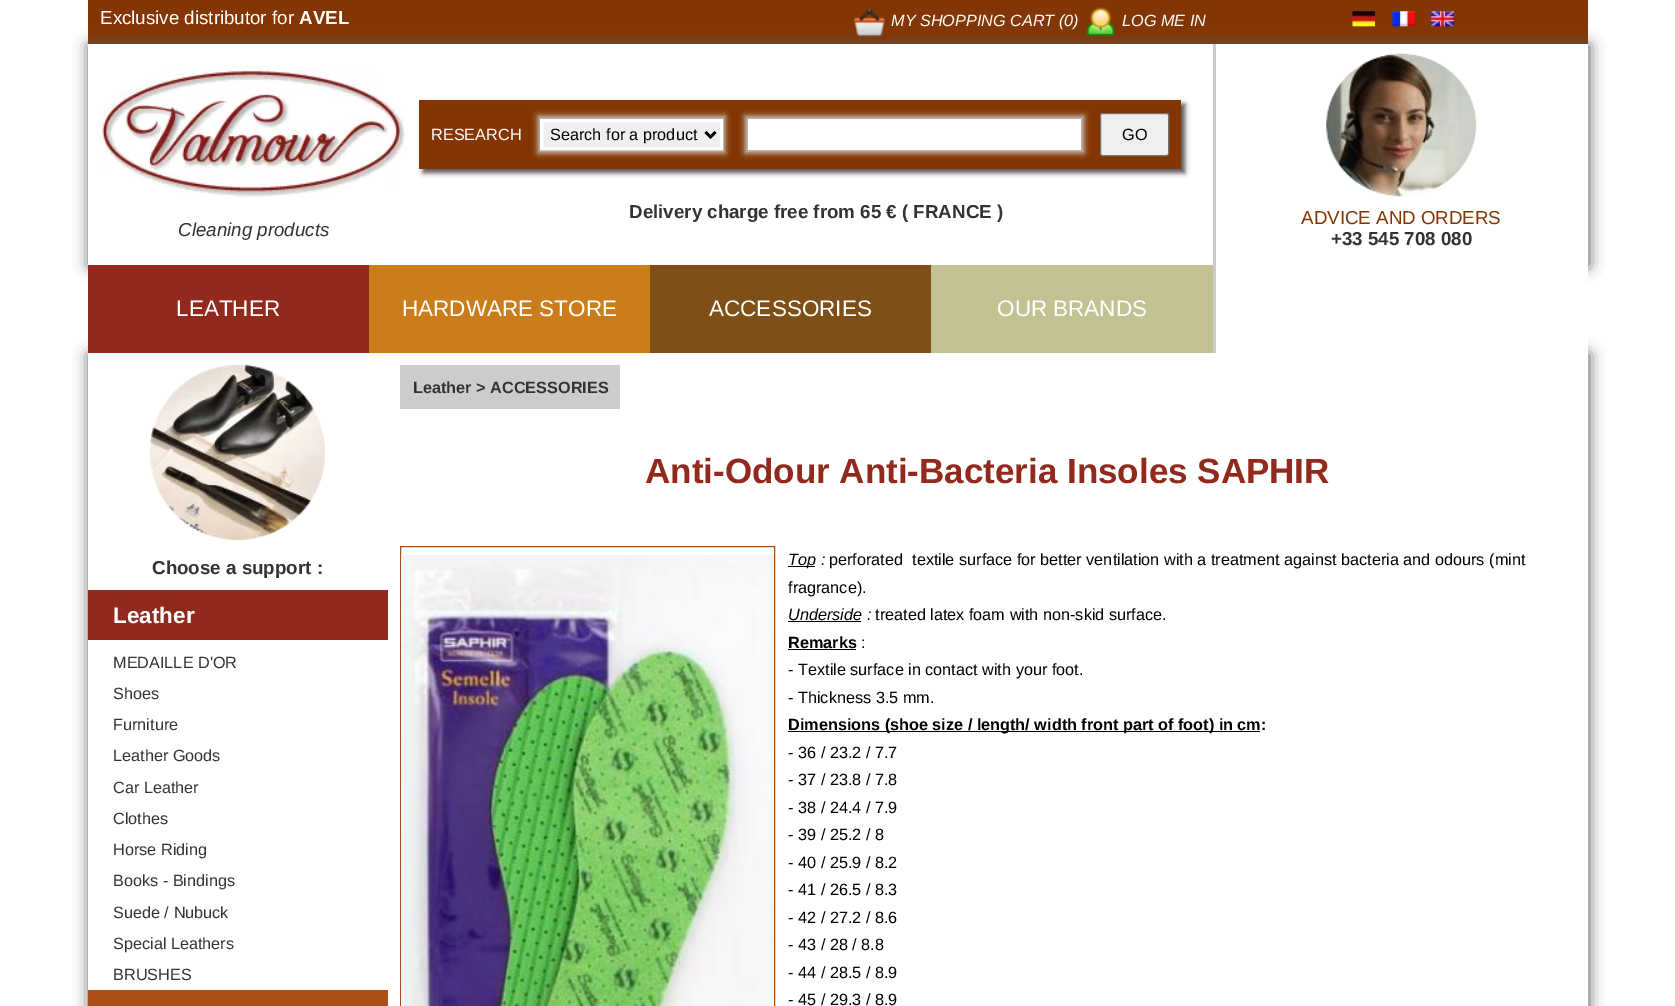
%!PS
<< /PageSize [1675 1006] /PageUsesTransparency true >> setpagedevice
/m/moveto load def
/l/rlineto load def
/z/closepath load def
/f/fill load def
/s/stroke load def
/q/gsave load def
/Q_/grestore load def
/w/setlinewidth load def
/C { dup -16 bitshift 255 div exch dup -8 bitshift 255 and 255 div exch 255 and 255 div setrgbcolor } def
/F { [ exch dup neg 0 0 3 -1 roll 0 0 ] selectfont } def
/T { moveto show } def
/R { rectfill } def
/A { dup .setfillconstantalpha .setstrokeconstantalpha } def
/Q { 5 dict begin { /r /h /w /y /x } { exch def } forall
  x r add y moveto x w add y 2 copy h add r arct x w add y h add x 1 index r arct
  x y h add x y r arct x y 2 copy exch w add exch r arct closepath end } def
/S { 12 dict begin { /a /b /q /h /w /y /x } { exch def } forall gsave /was 0 def
  9 -2 -9 { dup b mul 4 div /e exch def 1 sub .425 mul 2.718 exch exp 1 add a .99 .min exch div /now exch def
    1 1 now sub 1 was sub div sub A /was now def
    w h .min e 2 mul add 0 gt { x e sub y e sub w e 2 mul add h e 2 mul add
      q e add b .6 mul add w h .min 2 div e add .min 0 .max Q fill } if } for grestore end } def
/I { 5 dict begin { /h /w /y /x /name } { exch def } forall
  gsave x y translate w h scale
  w h 8 [w 0 0 h 0 0] name (r) file false 3 colorimage grestore end } def
0 .pushpdf14devicefilter
0 1006 translate 1 -1 scale
4 setmiterlimit
16#FFFFFF C
0 0 1675 1006 R
16#833603 C
88 0 1500 44 R
/LiberationSans-Regular 18.75 F
16#FFFFFF C
(Exclusive distributor for) 100 24 T
/LiberationSans-Bold 18.75 F
(AVEL) 299 24 T
(1.rgb) 853 8 32 29 I
/LiberationSans-Italic 16.25 F
(MY SHOPPING CART \(0\)) 891 26 T
(2.rgb) 1086 7 30 30 I
(LOG ME IN) 1122 26 T
(3.rgb) 1352 11 23 16 I
(4.rgb) 1392 11 23 16 I
(5.rgb) 1431 11 23 16 I
16#555555 C
89 45 1500 221 0 7.5 1 S
16#FFFFFF C
88 44 1500 221 R
16#555555 C
423 104 762 69 0 2.5 1 S
16#833603 C
419 100 762 69 R
/LiberationSans-Regular 16.25 F
16#FFFFFF C
(RESEARCH) 431 140 T
16#CFCFCF C
538 116 187 37 0 3 1 S
16#EFEFEF C
541.5 120.5 m 180 0 l 0 28 l -180 0 l z q f Q_
16#FFFFFF C
3 w
s
16#000000 C
2.5 w
705.5 132 m 5 5 l 5 -5 l s
(Search for a product) 550 140 T
16#CFCFCF C
745 116 339 37 0 3 1 S
16#FFFFFF C
748 119 333 31 R
16#EFEFEF C
1100.5 113.5 68 42 2 Q q f Q_
16#767676 C
1 w
s
16#000000 C
(GO) 1122 140 T
/LiberationSans-Bold 18.75 F
16#333333 C
(Delivery charge free from 65 € \( FRANCE \)) 629 218 T
(6.rgb) 100 69 305 129 I
/LiberationSans-Italic 18.75 F
(Cleaning products) 178 236 T
q
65 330 m 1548 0 l 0 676 l -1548 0 l z 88 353 m 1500 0 l 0 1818 l -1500 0 l z eoclip newpath
16#555555 C
89 354 1500 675 0 7.5 1 S
Q_
16#CCCCCC C
1213 44 3 309 R
(7.rgb) 1326 53 151 144 I
/LiberationSans-Regular 18.75 F
16#833603 C
(ADVICE AND ORDERS) 1301 224 T
/LiberationSans-Bold 18.75 F
16#333333 C
(+33 545 708 080) 1331 245 T
16#91291C C
88 265 281 88 R
/LiberationSans-Regular 22.5 F
16#FFFFFF C
(LEATHER) 176 316 T
16#CB7D1B C
369 265 281 88 R
16#FFFFFF C
(HARDWARE STORE) 402 316 T
16#7E4F16 C
650 265 281 88 R
16#FFFFFF C
(ACCESSORIES) 709 316 T
16#C2C292 C
931 265 282 88 R
16#FFFFFF C
(OUR BRANDS) 997 316 T
1216 265 372 88 R
(8.rgb) 150 365 175 175 I
/LiberationSans-Bold 18.75 F
16#333333 C
(Choose a support :) 152 574 T
16#91291C C
88 590 300 50 R
/LiberationSans-Bold 22.5 F
16#FFFFFF C
(Leather) 113 623 T
/LiberationSans-Regular 16.25 F
16#333333 C
(MEDAILLE D'OR) 113 668 T
(Shoes) 113 699 T
(Furniture) 113 730 T
(Leather Goods) 113 761 T
(Car Leather) 113 793 T
(Clothes) 113 824 T
(Horse Riding) 113 855 T
(Books - Bindings) 113 886 T
(Suede / Nubuck) 113 918 T
(Special Leathers) 113 949 T
(BRUSHES) 113 980 T
16#AB5014 C
88 990 300 16 R
16#FFFFFF C
1587 353 1 653 R
16#CCCCCC C
400 365 220 44 R
/LiberationSans-Bold 16.25 F
16#333333 C
(Leather > ACCESSORIES) 413 393 T
/LiberationSans-Bold 35 F
16#91291C C
(Anti-Odour Anti-Bacteria Insoles SAPHIR) 645 483 T
16#AB5014 C
400.5 546.5 374 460 rectstroke
(9.rgb) 401 555 373 451 I
16#000000 C
788 566 27 1 R
/LiberationSans-Italic 16.25 F
(Top :) 788 565 T
/LiberationSans-Regular 16.25 F
(perforated  textile surface for better ventilation with a treatment against bacteria and odours \(mint) 829 565 T
(fragrance\).) 788 593 T
/LiberationSans-Italic 16.25 F
(Underside :) 788 620 T
788 621 73 1 R
/LiberationSans-Regular 16.25 F
(treated latex foam with non-skid surface.) 875 620 T
/LiberationSans-Bold 16.25 F
(Remarks) 788 648 T
788 649 68 1 R
/LiberationSans-Regular 16.25 F
(:) 861 648 T
(- Textile surface in contact with your foot.) 788 675 T
(- Thickness 3.5 mm.) 788 703 T
788 731 472 1 R
/LiberationSans-Bold 16.25 F
(Dimensions \(shoe size / length/ width front part of foot\) in cm:) 788 730 T
/LiberationSans-Regular 16.25 F
(- 36 / 23.2 / 7.7) 788 758 T
(- 37 / 23.8 / 7.8) 788 785 T
(- 38 / 24.4 / 7.9) 788 813 T
(- 39 / 25.2 / 8) 788 840 T
(- 40 / 25.9 / 8.2) 788 868 T
(- 41 / 26.5 / 8.3) 788 895 T
(- 42 / 27.2 / 8.6) 788 923 T
(- 43 / 28 / 8.8) 788 950 T
(- 44 / 28.5 / 8.9) 788 978 T
(- 45 / 29.3 / 8.9) 788 1005 T
.poppdf14devicefilter showpage
